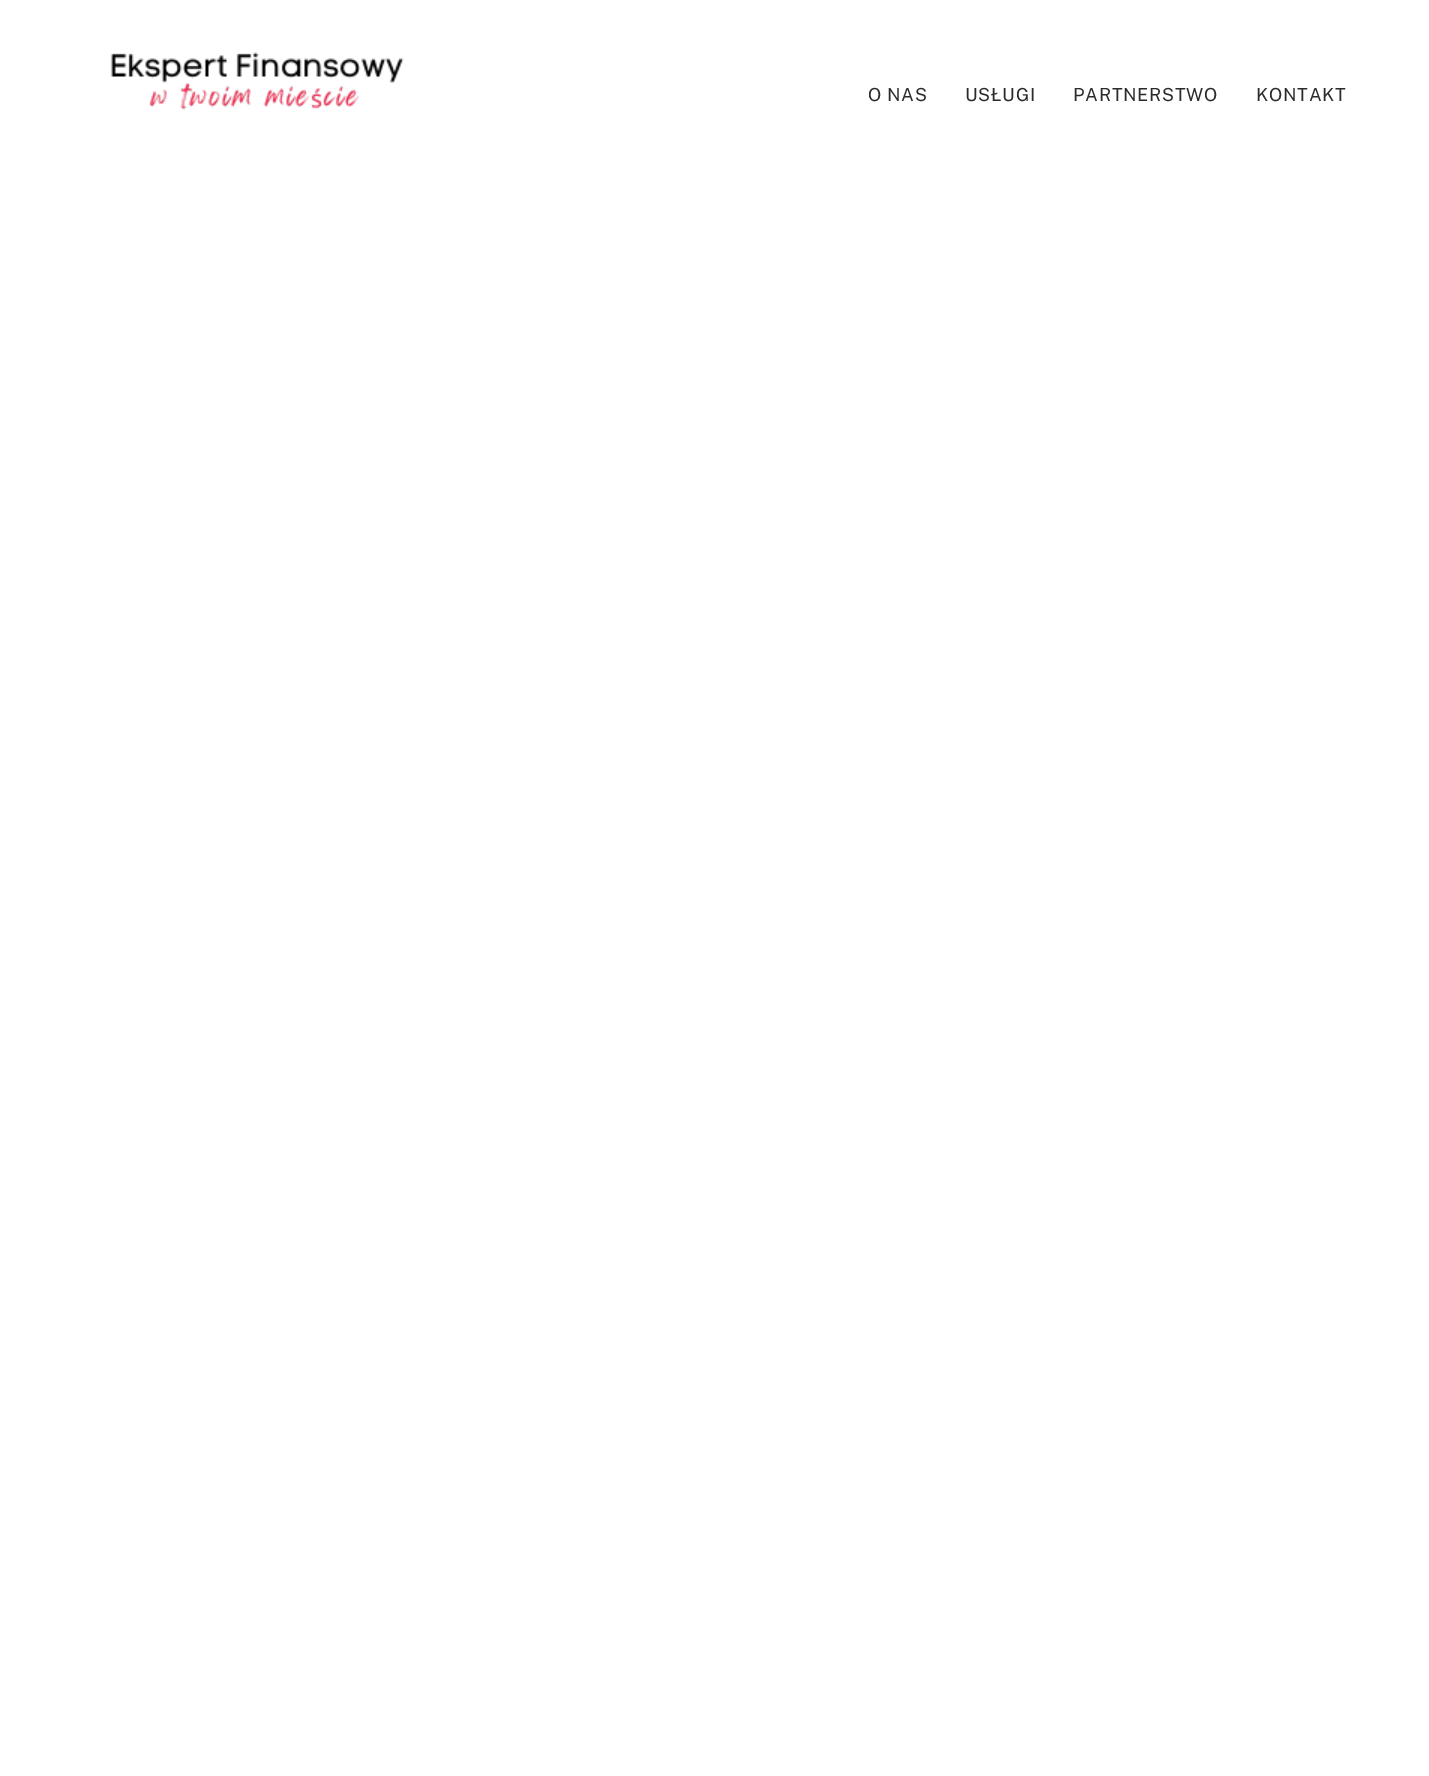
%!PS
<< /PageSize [1429 1776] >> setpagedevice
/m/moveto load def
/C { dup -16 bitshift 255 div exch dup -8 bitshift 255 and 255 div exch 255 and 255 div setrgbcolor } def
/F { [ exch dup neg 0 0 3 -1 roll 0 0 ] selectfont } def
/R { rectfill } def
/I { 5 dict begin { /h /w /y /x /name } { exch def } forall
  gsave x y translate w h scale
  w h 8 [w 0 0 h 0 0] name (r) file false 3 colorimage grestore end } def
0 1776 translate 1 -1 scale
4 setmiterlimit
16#FFFFFF C
0 0 1429 1776 R
(1.rgb) 110 52 294 58 I
/PublicSans-Regular 18 F
16#2B2B2B C
868 101 m .75 0 (O NAS) ashow
965 101 m .75 0 (USŁUGI) ashow
1073 101 m .75 0 (PARTNERSTWO) ashow
1256 101 m .75 0 (KONTAKT) ashow
showpage
